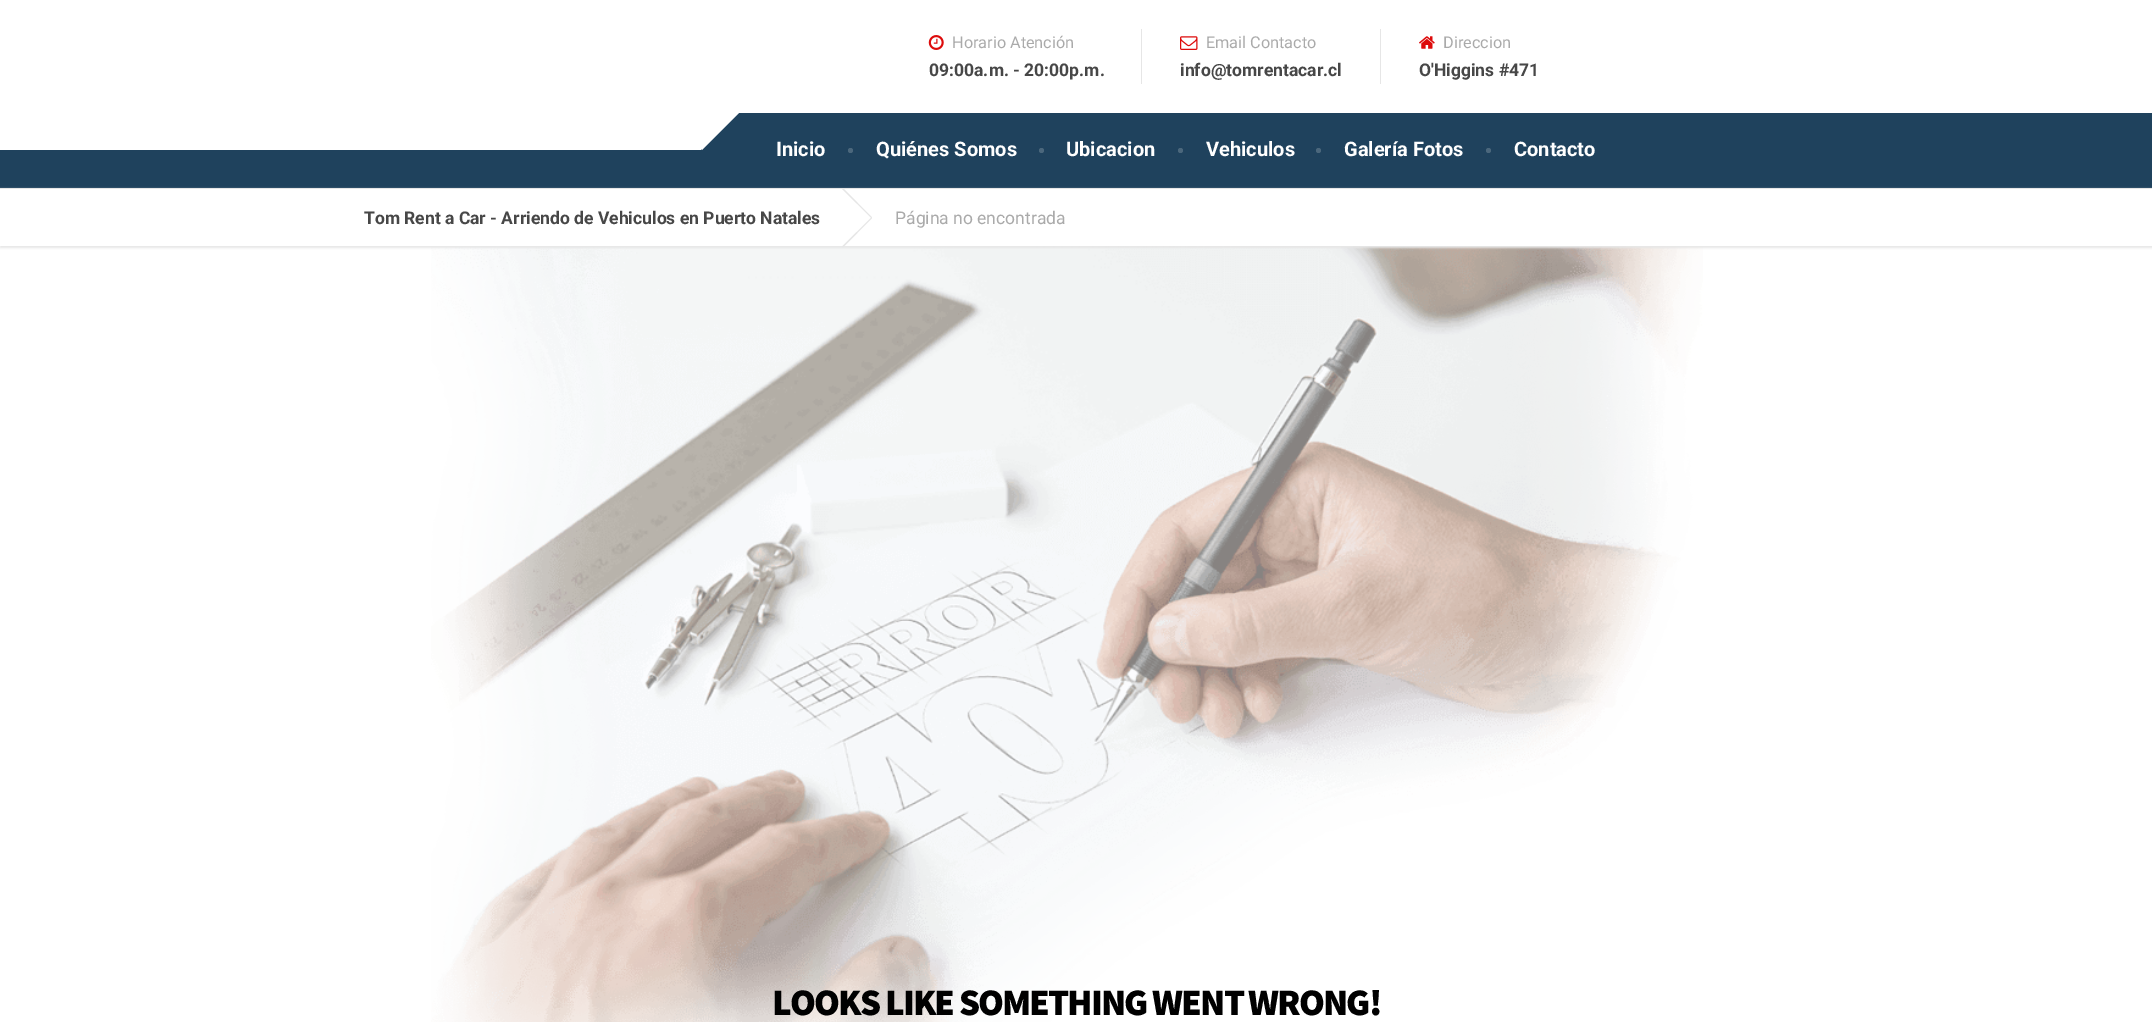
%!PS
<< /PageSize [2152 1022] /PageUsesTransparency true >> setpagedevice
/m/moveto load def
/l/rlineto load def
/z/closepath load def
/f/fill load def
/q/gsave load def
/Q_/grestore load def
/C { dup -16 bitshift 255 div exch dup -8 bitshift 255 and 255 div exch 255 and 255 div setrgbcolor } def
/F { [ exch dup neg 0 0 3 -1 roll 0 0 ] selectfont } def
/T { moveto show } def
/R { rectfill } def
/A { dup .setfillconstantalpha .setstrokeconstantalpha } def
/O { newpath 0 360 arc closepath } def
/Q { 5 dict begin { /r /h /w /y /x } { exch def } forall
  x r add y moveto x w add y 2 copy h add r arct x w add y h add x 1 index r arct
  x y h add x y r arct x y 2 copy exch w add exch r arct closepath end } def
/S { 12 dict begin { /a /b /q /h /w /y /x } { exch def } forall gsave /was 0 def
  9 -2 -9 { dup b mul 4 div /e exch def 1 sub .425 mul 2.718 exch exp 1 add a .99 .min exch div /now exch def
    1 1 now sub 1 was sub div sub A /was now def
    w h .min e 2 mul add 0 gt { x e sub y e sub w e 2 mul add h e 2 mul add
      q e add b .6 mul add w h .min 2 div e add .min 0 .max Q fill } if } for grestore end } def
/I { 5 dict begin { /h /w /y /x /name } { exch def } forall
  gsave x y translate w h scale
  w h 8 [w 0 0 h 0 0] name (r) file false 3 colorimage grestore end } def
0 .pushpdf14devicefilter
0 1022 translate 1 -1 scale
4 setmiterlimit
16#FFFFFF C
0 0 2152 1022 R
16#1F425D C
0 113 2152 75 R
16#FFFFFF C
0 113 701 37 R
(1.rgb) 928 35 16 15 I
/Roboto-Regular 16.25 F
16#AAAAAA C
(Horario Atención) 952 48 T
/Roboto-Bold 17.5 F
16#474747 C
(09:00a.m. - 20:00p.m.) 929 76 T
16#E6E6E6 C
1141 29 1 55 R
(2.rgb) 1180 36 18 14 I
/Roboto-Regular 16.25 F
16#AAAAAA C
(Email Contacto) 1206 48 T
/Roboto-Bold 17.5 F
16#474747 C
(info@tomrentacar.cl) 1180 76 T
16#E6E6E6 C
1380 29 1 55 R
(3.rgb) 1419 36 16 13 I
/Roboto-Regular 16.25 F
16#AAAAAA C
(Direccion) 1443 48 T
/Roboto-Bold 17.5 F
16#474747 C
(O'Higgins #471) 1419 76 T
16#FFFFFF C
740 112 m -38 38 l -38 -38 l 38 -38 l z f
/Roboto-Bold 20 F
(Inicio) 776 156 T
16#4B677C C
850.5 150.5 2.5 O f
16#FFFFFF C
(Quiénes Somos) 876 156 T
16#4B677C C
1041.5 150.5 2.5 O f
16#FFFFFF C
(Ubicacion) 1066 156 T
16#4B677C C
1180.5 150.5 2.5 O f
16#FFFFFF C
(Vehiculos) 1206 156 T
16#4B677C C
1318.5 150.5 2.5 O f
16#FFFFFF C
(Galería Fotos) 1344 156 T
16#4B677C C
1488.5 150.5 2.5 O f
16#FFFFFF C
(Contacto) 1514 156 T
(4.rgb) 431 246 1272 776 I
q
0 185 m 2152 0 l 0 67 l -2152 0 l z 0 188 m 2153 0 l 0 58 l -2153 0 l z eoclip newpath
16#E6E6E6 C
0 189 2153 59 0 1 1 S
Q_
16#E6E6E6 C
0 188 2152 1 R
/Roboto-Bold 17.5 F
16#474747 C
(Tom Rent a Car - Arriendo de Vehiculos en Puerto Natales) 364 224 T
16#E6E6E6 C
842 189 m 1 -1 l 29 29.5 l -.5 .5 l z f
871.5 217.5 m .5 .5 l -29 29.5 l -1 -1 l z f
/Roboto-Regular 17.5 F
16#AAAAAA C
(Página no encontrada) 895 224 T
/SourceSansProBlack-Black 37.5 F
16#000000 C
772 1015 m -1.9 0 (LOOKS LIKE SOMETHING WENT WRONG!) ashow
.poppdf14devicefilter showpage
